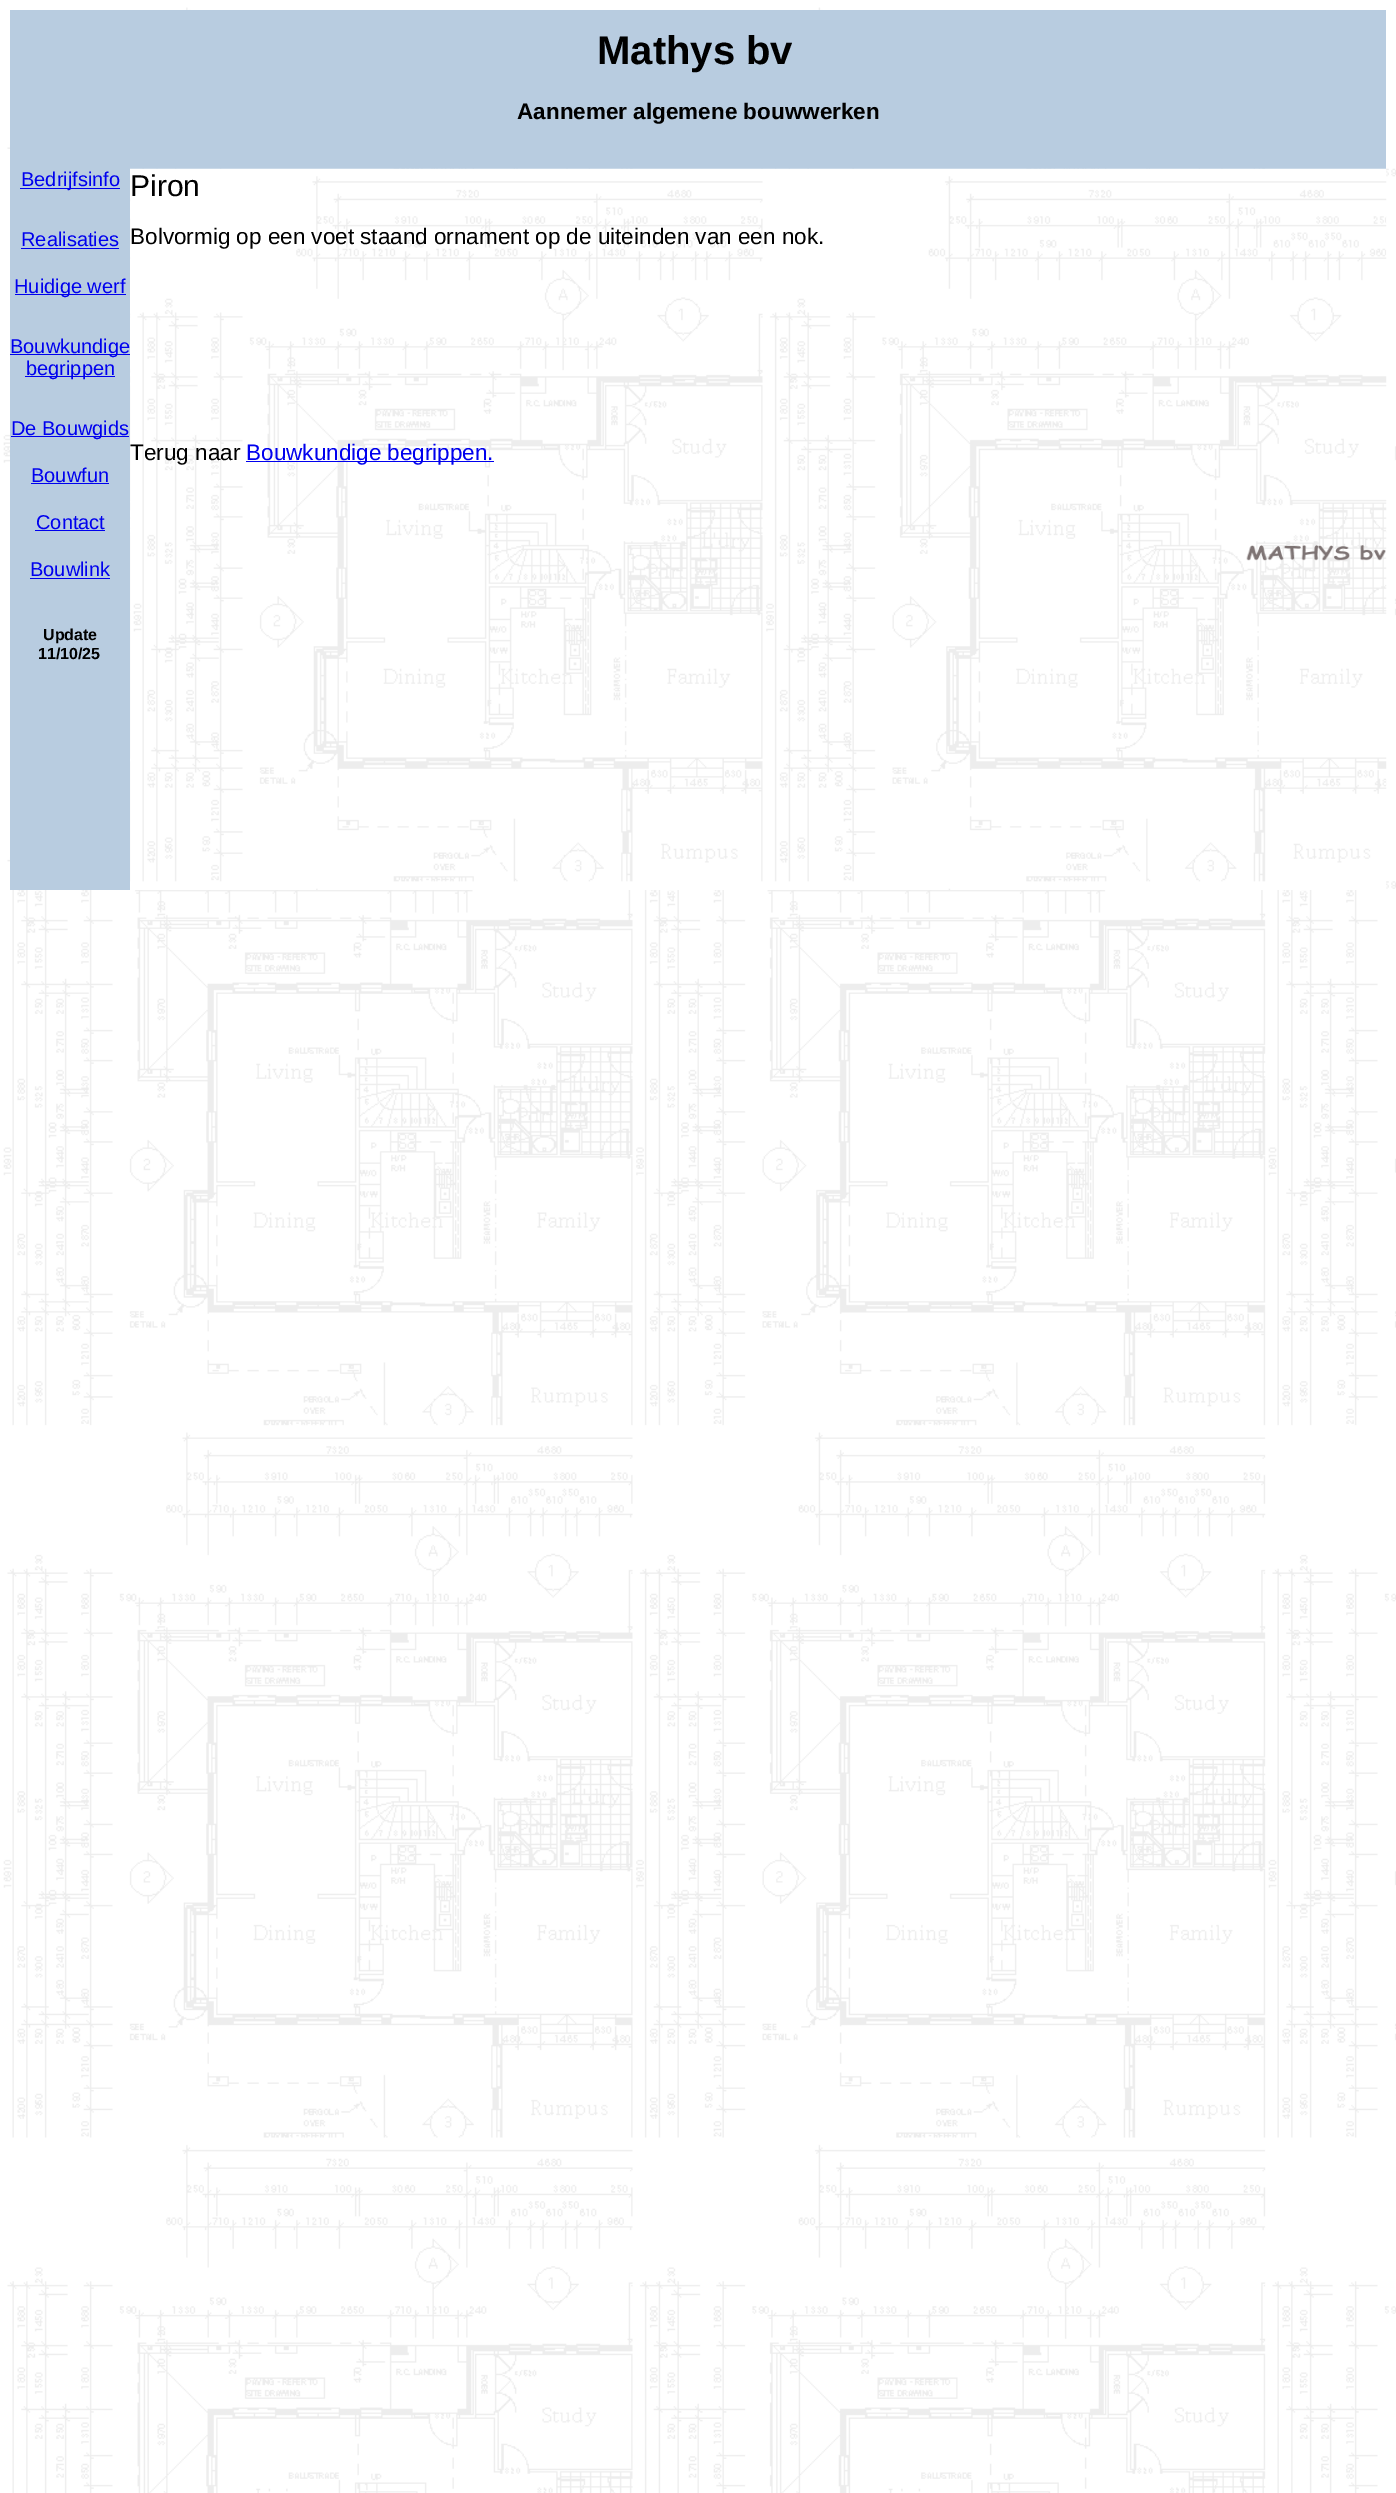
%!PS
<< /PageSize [1396 2493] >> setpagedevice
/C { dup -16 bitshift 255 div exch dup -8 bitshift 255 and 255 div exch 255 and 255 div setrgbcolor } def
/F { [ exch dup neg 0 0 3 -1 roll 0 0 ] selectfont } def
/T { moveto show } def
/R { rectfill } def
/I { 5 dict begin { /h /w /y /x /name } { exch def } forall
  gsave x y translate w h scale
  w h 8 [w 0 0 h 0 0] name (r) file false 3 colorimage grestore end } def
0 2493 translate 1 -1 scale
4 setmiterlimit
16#FFFFFF C
0 0 1396 2493 R
(1.rgb) 3 7 1393 2486 I
16#B8CCE0 C
10 10 1376 159 R
/LiberationSans-Bold 40 F
16#000000 C
(Mathys bv) 597 64 T
/LiberationSans-Bold 22.5 F
(Aannemer algemene bouwwerken) 517 119 T
16#B8CCE0 C
10 169 120 721 R
16#0000EE C
20 188 100 1 R
/LiberationSans-Regular 20 F
(Bedrijfsinfo) 21 186 T
(Realisaties) 21 246 T
21 248 98 1 R
15 294 111 1 R
(Huidige werf) 14 293 T
10 354 120 1 R
(Bouwkundige) 10 353 T
25 376 90 1 R
(begrippen) 26 375 T
11 436 118 1 R
(De Bouwgids) 11 435 T
(Bouwfun) 31 482 T
31 483 78 1 R
(Contact) 36 529 T
35 530 70 1 R
(Bouwlink) 30 576 T
30 578 80 1 R
/LiberationSans-Bold 16 F
16#000000 C
(Update) 43 640 T
(11/10/25) 38 659 T
(2.rgb) 130 168 1257 722 I
/LiberationSans-Regular 30 F
(Piron) 130 196 T
/LiberationSans-Regular 22.5 F
(Bolvormig op een voet staand ornament op de uiteinden van een nok.) 130 244 T
(Terug naar) 130 460 T
16#0000EE C
246 461 248 1 R
(Bouwkundige begrippen.) 246 460 T
(3.rgb) 1246 545 140 16 I
showpage
